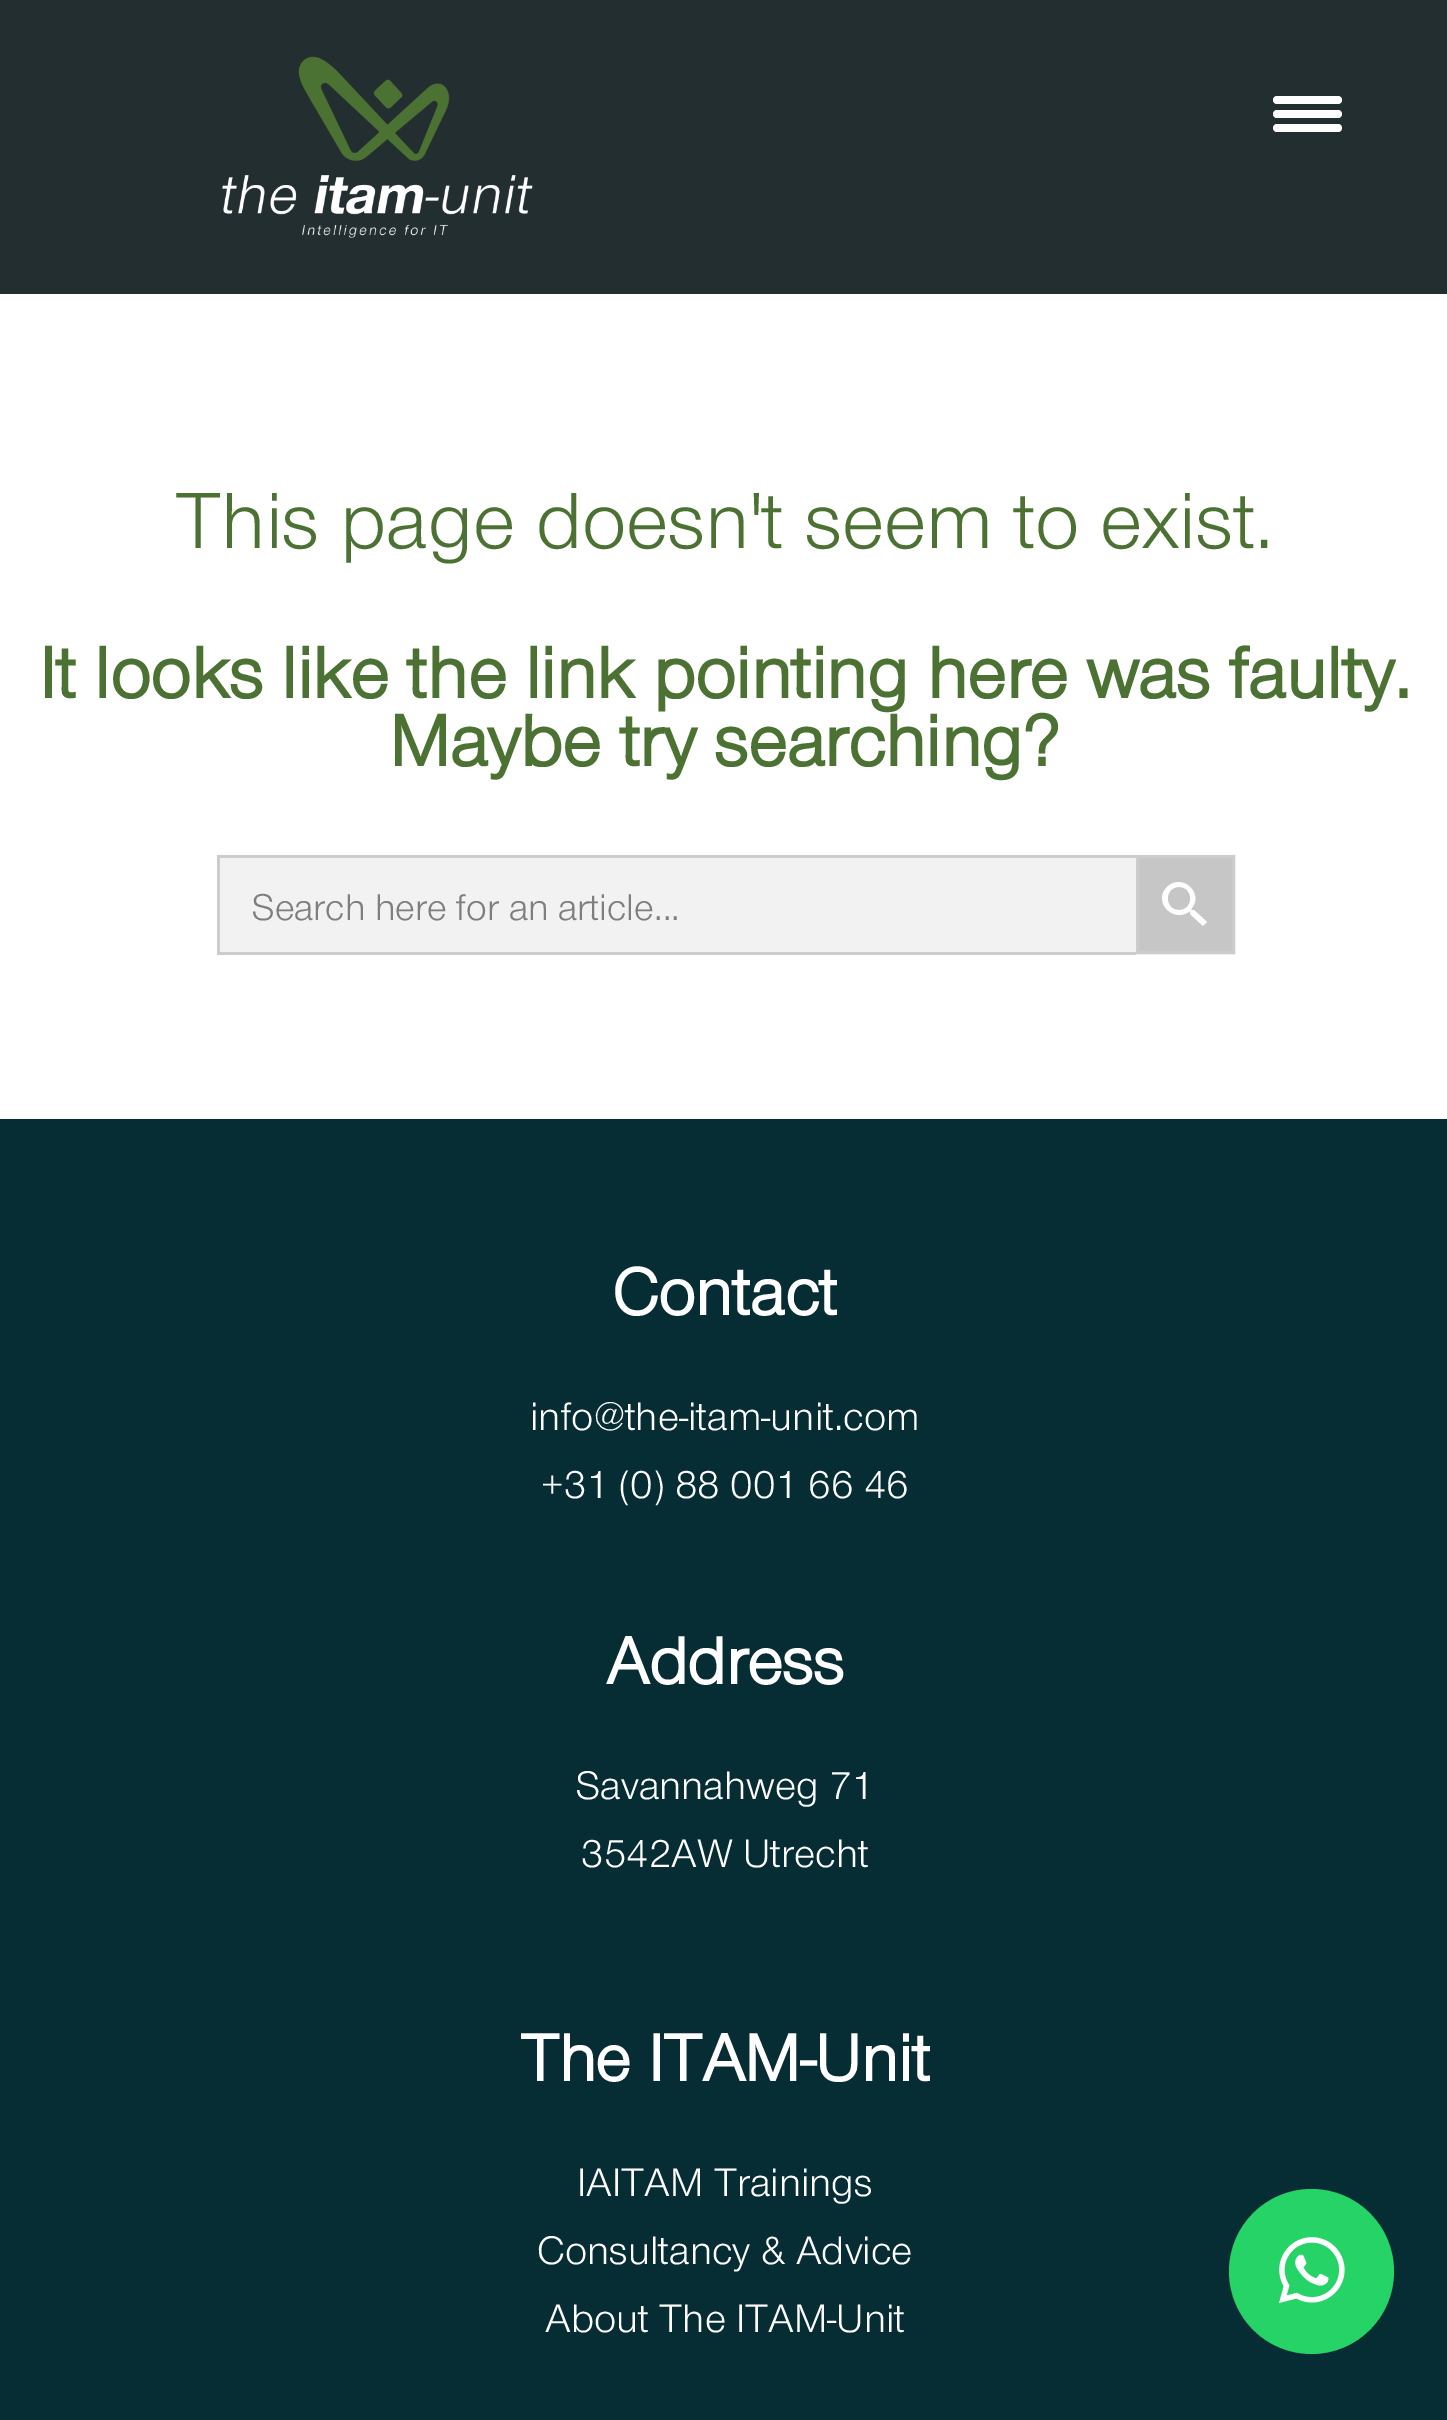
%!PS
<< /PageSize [1447 2420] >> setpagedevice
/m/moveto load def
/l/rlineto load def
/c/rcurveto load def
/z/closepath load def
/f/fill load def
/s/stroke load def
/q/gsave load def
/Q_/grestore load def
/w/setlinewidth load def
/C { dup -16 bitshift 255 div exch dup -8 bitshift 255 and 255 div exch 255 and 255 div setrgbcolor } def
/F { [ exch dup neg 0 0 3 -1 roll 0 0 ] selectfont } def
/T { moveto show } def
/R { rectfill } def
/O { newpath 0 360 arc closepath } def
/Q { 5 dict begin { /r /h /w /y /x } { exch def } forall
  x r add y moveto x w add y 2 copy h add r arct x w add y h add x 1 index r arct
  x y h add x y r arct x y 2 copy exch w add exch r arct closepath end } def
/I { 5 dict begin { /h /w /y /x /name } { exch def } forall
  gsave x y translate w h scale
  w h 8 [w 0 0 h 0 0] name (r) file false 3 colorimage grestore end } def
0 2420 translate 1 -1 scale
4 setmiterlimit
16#FFFFFF C
0 0 1447 2420 R
16#222E2F C
0 0 1447 294 R
(1.rgb) 222 56 311 182 I
16#FFFFFF C
1273 110 69 8 4 Q f
1273 96 69 8 4 Q f
1273 124 69 8 4 Q f
/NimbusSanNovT-Regular 82.5 F
16#4C7233 C
(This page doesn't seem to exist.) 175 548 T
/NimbusSanNovT-Bold 75.25 F
(It looks like the link pointing here was faulty.) 39 698 T
(Maybe try searching?) 389 766 T
16#F2F2F2 C
220 858 916 94 R
16#CCCCCC C
217 855 919 3 R
217 952 919 3 R
217 855 3 99 R
q
253 883 850 47 rectclip
/NimbusSanNovT-Regular 38.5 F
16#7E7E7E C
(Search here for an article...) 252 920 T
Q_
16#C6C6C6 C
1137.5 856.5 m 96 0 l 0 96 l -96 0 l z q f Q_
16#CCCCCC C
3 w
s
16#FFFFFF C
1194 910 m -2 0 l -1 -1 l 14 -15 -9 -37 -24 -22 c -15 15 7 37 23 24 c 0 1 l 0 2 l 13 12 l 4 -4 l z 1179 910 m -15 0 -15 -23 0 -23 c 15 0 15 23 0 23 c z f
16#062C34 C
0 1119 1447 1301 R
/NimbusSanNovT-Bold 68.75 F
16#FFFFFF C
(Contact) 612 1315 T
/NimbusSanNovT-Regular 41.25 F
(info@the-itam-unit.com) 530 1430 T
(+31 \(0\) 88 001 66 46) 541 1498 T
/NimbusSanNovT-Bold 68.75 F
(Address) 606 1684 T
/NimbusSanNovT-Regular 41.25 F
(Savannahweg 71) 576 1799 T
(3542AW Utrecht) 581 1867 T
/NimbusSanNovT-Bold 68.75 F
(The ITAM-Unit) 520 2081 T
/NimbusSanNovT-Regular 41.25 F
(IAITAM Trainings) 577 2196 T
(Consultancy & Advice) 537 2264 T
(About The ITAM-Unit) 545 2332 T
16#25D366 C
1311.5 2271.5 82.5 O f
(2.rgb) 1279 2237 66 67 I
showpage
